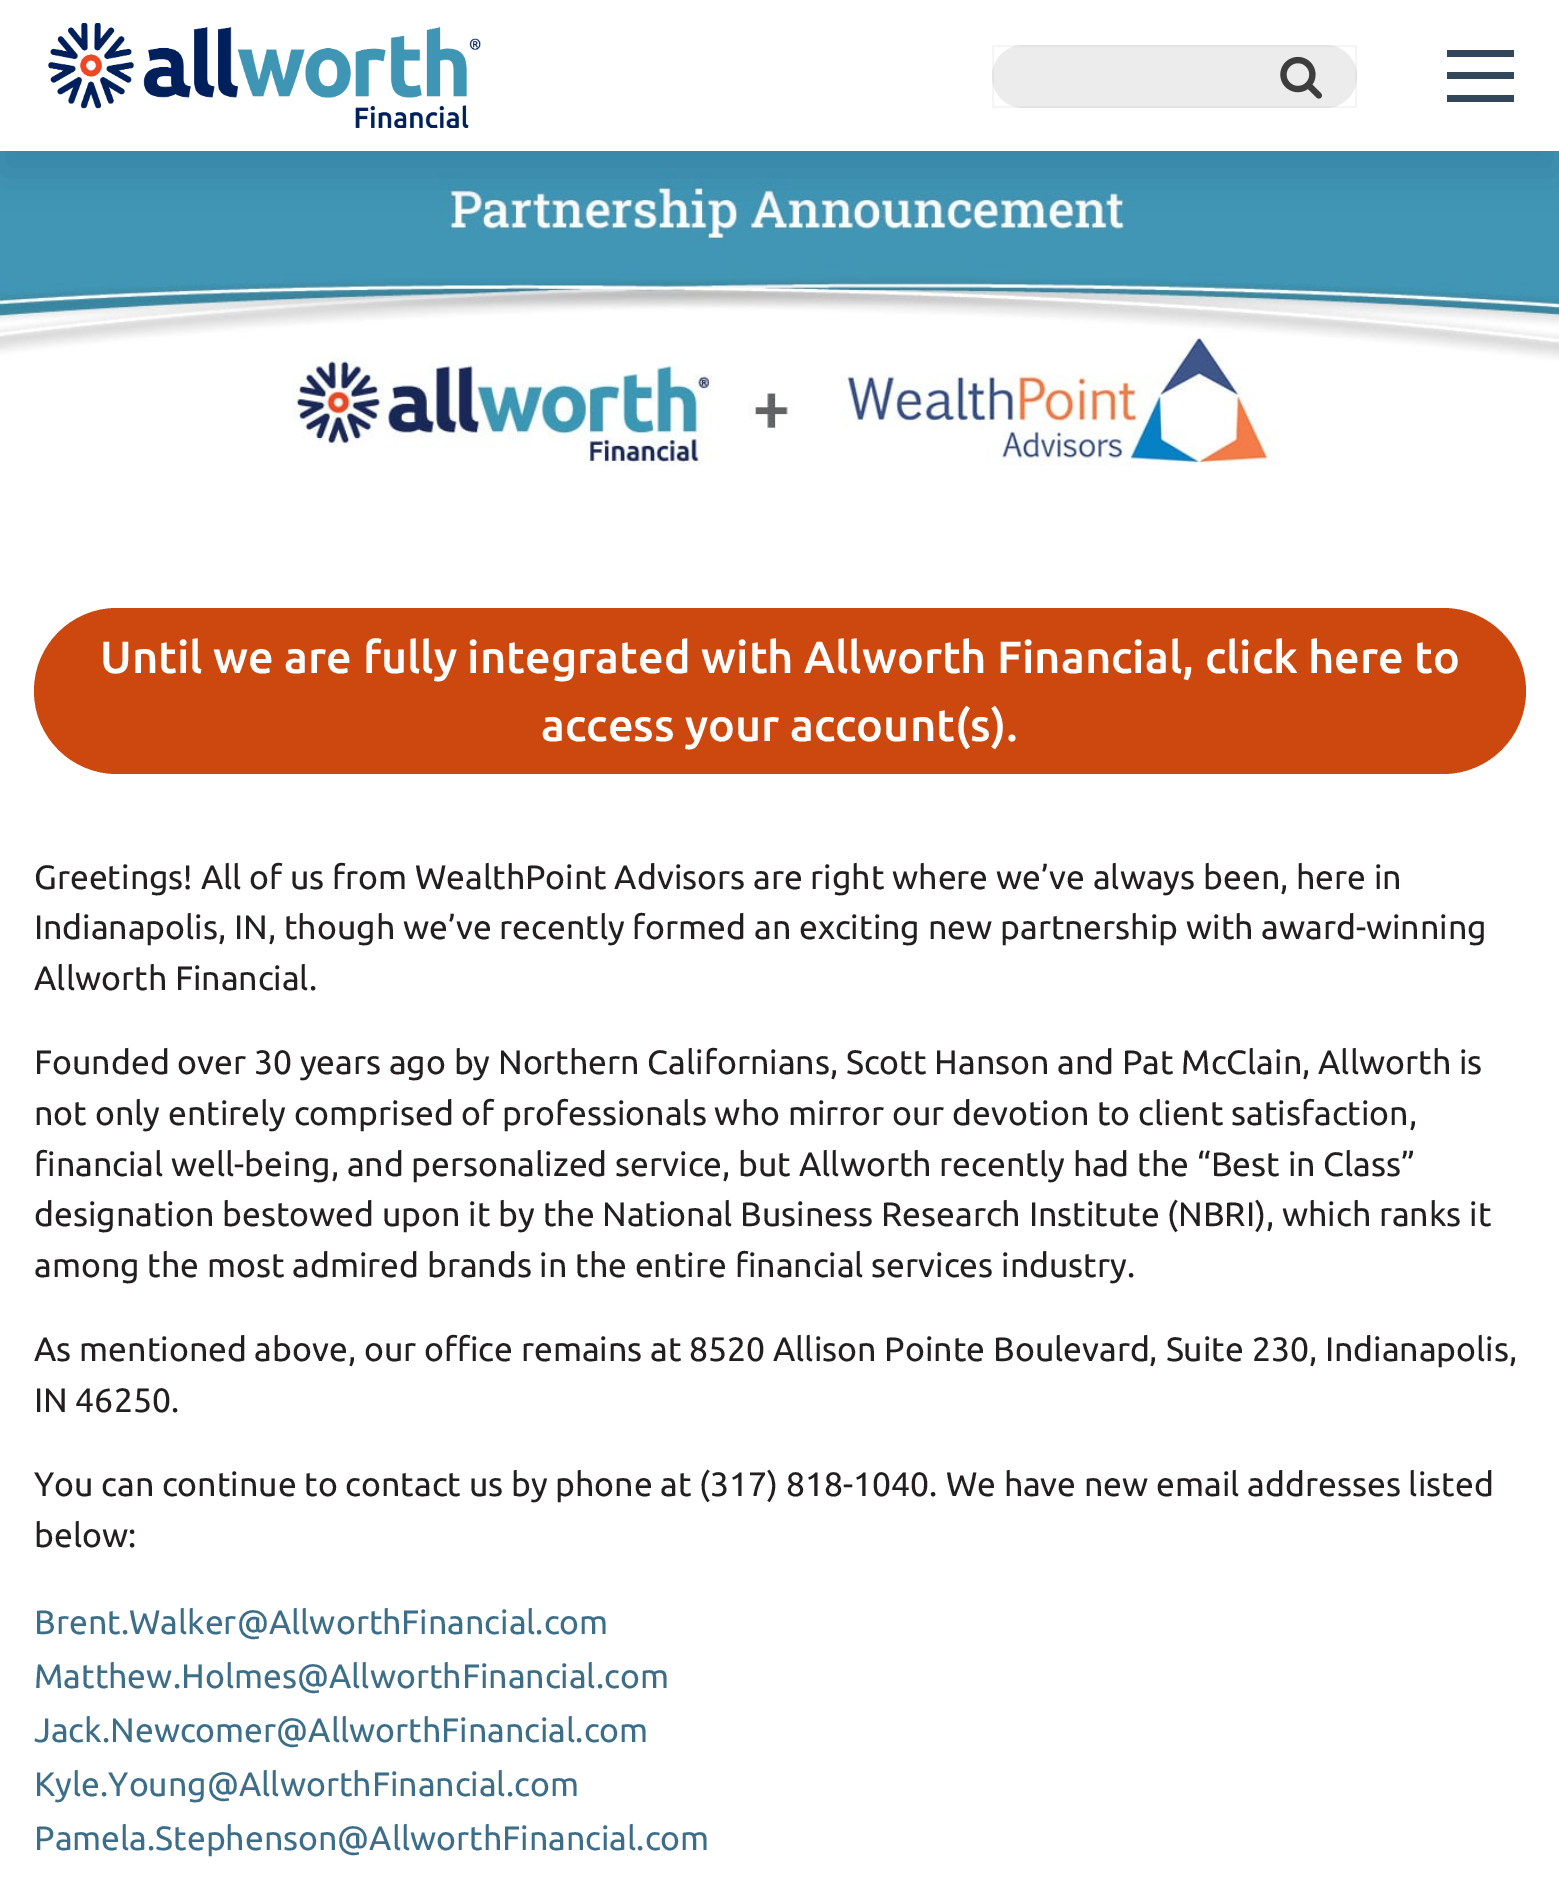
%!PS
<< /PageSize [1559 1884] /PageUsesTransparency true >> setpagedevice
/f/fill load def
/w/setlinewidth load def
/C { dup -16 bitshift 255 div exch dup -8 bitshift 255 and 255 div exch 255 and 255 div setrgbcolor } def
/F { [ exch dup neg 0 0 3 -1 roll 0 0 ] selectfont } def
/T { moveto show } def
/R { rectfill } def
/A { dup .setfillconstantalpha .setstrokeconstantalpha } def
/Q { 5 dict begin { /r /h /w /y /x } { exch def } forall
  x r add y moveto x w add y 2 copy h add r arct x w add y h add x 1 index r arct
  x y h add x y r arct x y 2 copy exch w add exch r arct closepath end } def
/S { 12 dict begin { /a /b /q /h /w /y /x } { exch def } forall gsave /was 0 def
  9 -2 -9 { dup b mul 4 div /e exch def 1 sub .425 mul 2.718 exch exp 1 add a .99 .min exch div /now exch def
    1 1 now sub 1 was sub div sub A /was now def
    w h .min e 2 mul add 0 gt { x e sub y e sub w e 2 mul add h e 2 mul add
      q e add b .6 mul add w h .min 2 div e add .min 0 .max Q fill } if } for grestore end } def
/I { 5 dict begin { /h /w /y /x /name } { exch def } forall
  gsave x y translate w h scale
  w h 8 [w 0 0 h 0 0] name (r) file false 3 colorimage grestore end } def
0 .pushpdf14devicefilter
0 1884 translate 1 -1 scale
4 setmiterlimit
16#FFFFFF C
0 0 1559 1884 R
(3.rgb) 0 151 1559 315 I
16#00205B C
0 23 1559 150 0 22.5 .15 S
16#FFFFFF C
0 0 1559 151 R
(1.rgb) 47 23 434 105 I
16#ECECEC C
992 45 365 63 31.5 Q f
0.05 A
16#3D3D3D C
2 w
993 46 363 61 rectstroke
1 A
(2.rgb) 1280 56 42 43 I
16#33475B C
1447 72 67 7 R
1447 50 67 7 R
1447 95 67 7 R
16#CC480F C
34 608 1492 166 83 Q f
/Ubuntu-Medium 45 F
16#FFFFFF C
(Until we are fully integrated with Allworth Financial, click here to) 100 673 T
(access your account\(s\).) 541 741 T
/Ubuntu-Regular 33.75 F
16#231F20 C
(Greetings! All of us from WealthPoint Advisors are right where we’ve always been, here in) 34 889 T
(Indianapolis, IN, though we’ve recently formed an exciting new partnership with award-winning) 34 939 T
(Allworth Financial.) 34 990 T
(Founded over 30 years ago by Northern Californians, Scott Hanson and Pat McClain, Allworth is) 34 1074 T
(not only entirely comprised of professionals who mirror our devotion to client satisfaction,) 34 1125 T
(financial well-being, and personalized service, but Allworth recently had the “Best in Class”) 34 1176 T
(designation bestowed upon it by the National Business Research Institute \(NBRI\), which ranks it) 34 1226 T
(among the most admired brands in the entire financial services industry.) 34 1277 T
(As mentioned above, our office remains at 8520 Allison Pointe Boulevard, Suite 230, Indianapolis,) 34 1361 T
(IN 46250.) 34 1412 T
(You can continue to contact us by phone at \(317\) 818-1040. We have new email addresses listed) 34 1496 T
(below:) 34 1547 T
16#3C6E8A C
(Brent.Walker@AllworthFinancial.com) 34 1634 T
(Matthew.Holmes@AllworthFinancial.com) 34 1688 T
(Jack.Newcomer@AllworthFinancial.com) 34 1742 T
(Kyle.Young@AllworthFinancial.com) 34 1796 T
(Pamela.Stephenson@AllworthFinancial.com) 34 1850 T
.poppdf14devicefilter showpage
